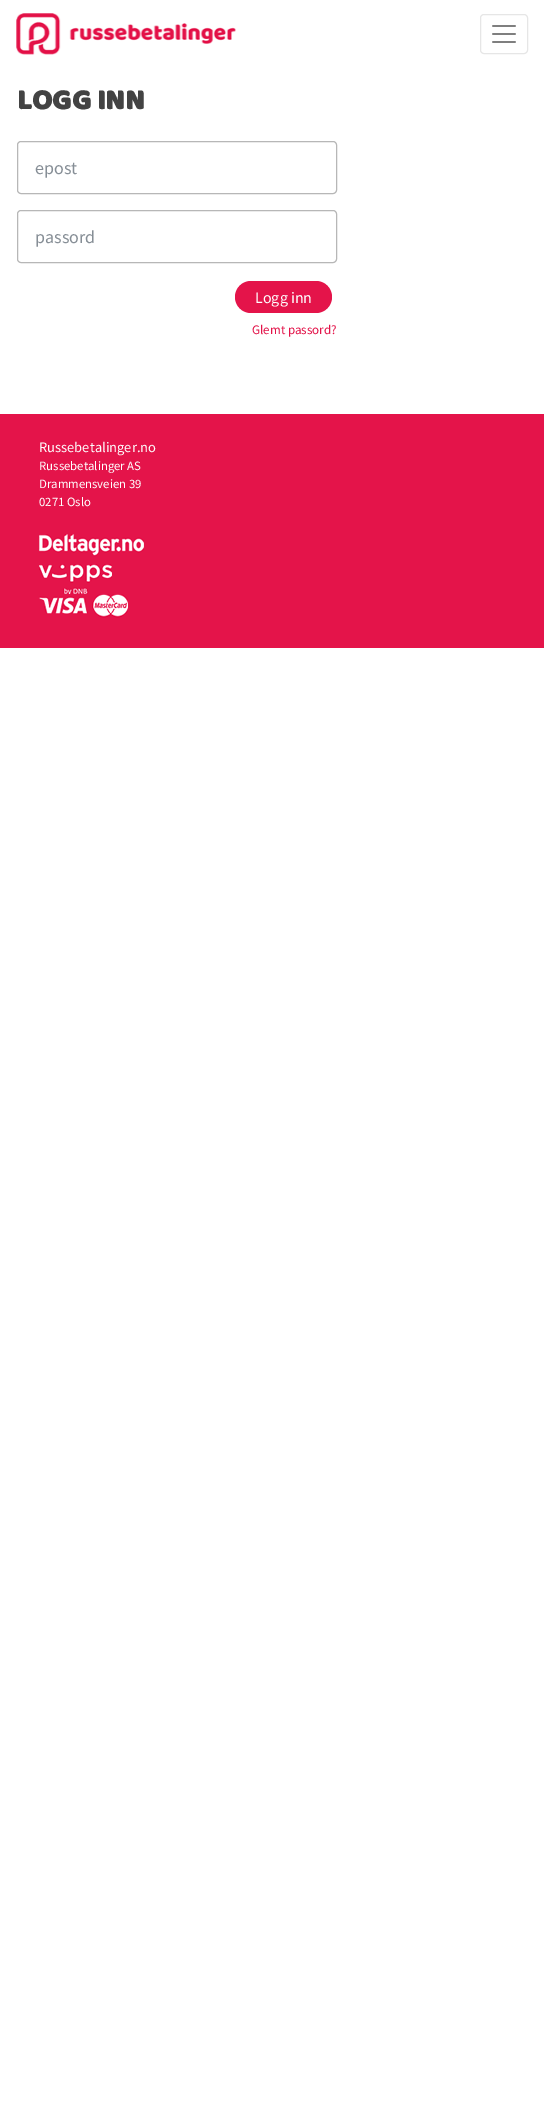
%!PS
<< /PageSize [544 2119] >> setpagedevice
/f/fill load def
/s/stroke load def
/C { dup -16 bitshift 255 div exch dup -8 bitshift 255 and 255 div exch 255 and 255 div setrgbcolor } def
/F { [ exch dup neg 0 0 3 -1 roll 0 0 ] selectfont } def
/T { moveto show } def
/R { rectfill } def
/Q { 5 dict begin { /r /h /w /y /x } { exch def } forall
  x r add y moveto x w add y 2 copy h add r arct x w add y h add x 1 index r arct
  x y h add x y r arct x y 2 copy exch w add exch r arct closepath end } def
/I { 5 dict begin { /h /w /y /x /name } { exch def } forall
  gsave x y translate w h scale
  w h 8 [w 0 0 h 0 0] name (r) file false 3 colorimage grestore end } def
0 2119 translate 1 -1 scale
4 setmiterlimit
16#FFFFFF C
0 0 544 2119 R
(1.rgb) 16 13 220 42 I
16#E6E6E6 C
480.5 14.5 47 39 3.5 Q s
(2.rgb) 492 25 24 18 I
/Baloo-Bold 29 F
16#434343 C
(LOGG INN) 17 109 T
16#B7B7B7 C
17.5 141.5 319 52 3.5 Q s
/SourceSansPro-Regular 18 F
16#868E96 C
(epost) 35 174 T
16#B7B7B7 C
17.5 210.5 319 52 3.5 Q s
16#868E96 C
(passord) 35 243 T
16#E4144A C
235 281 97 32 16 Q f
/SourceSansPro-Regular 16 F
16#FFFFFF C
(Logg inn) 255 303 T
/SourceSansPro-Regular 13 F
16#E31349 C
(Glemt passord?) 252 334 T
16#E4144A C
0 414 544 234 R
/SourceSansPro-Regular 14.5 F
16#FFFFFF C
(Russebetalinger.no) 39 452 T
/SourceSansPro-Regular 12.75 F
(Russebetalinger AS) 39 470 T
(Drammensveien 39) 39 488 T
(0271 Oslo) 39 506 T
(3.rgb) 39 534 105 23 I
(4.rgb) 39 564 73 30 I
(5.rgb) 39 594 89 24 I
showpage
